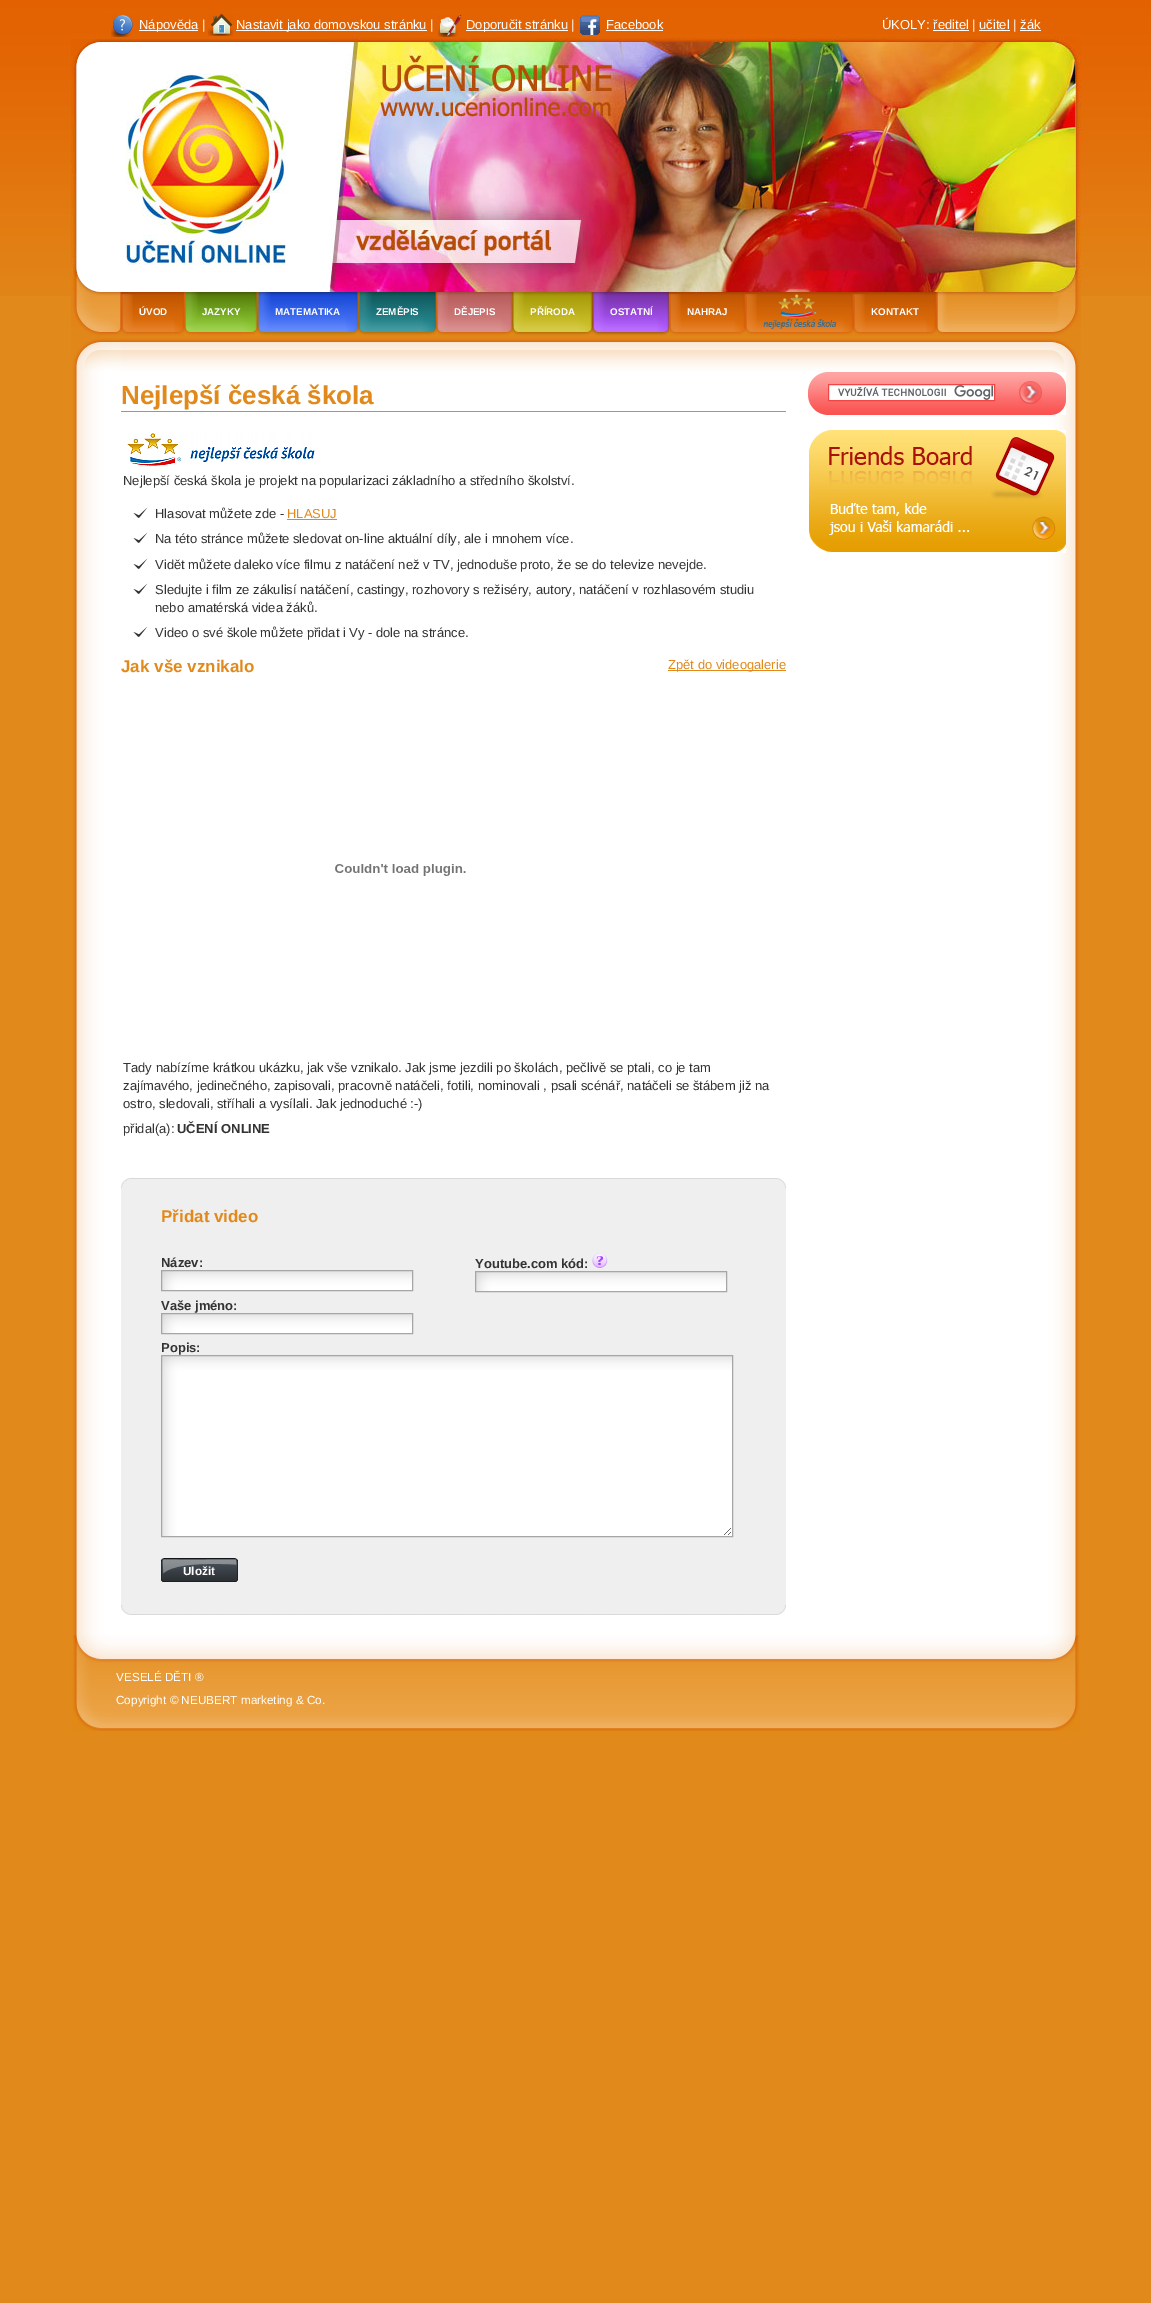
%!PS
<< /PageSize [1151 2303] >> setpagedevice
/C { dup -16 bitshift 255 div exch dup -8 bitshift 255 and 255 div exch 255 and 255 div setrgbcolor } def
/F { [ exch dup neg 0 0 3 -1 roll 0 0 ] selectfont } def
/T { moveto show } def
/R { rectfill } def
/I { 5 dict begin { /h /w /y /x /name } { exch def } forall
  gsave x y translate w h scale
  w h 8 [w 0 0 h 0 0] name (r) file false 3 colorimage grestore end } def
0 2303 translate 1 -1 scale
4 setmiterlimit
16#E1891A C
0 0 1151 2303 R
(1.rgb) 0 0 1151 296 I
(2.rgb) 111 15 22 22 I
16#FFFFFF C
139 30 59 1 R
/LiberationSans-Regular 13 F
(Nápověda |) 139 29 T
(3.rgb) 208 14 25 22 I
236 30 191 1 R
(Nastavit jako domovskou stránku |) 236 29 T
(4.rgb) 438 15 24 22 I
466 30 102 1 R
(Doporučit stránku |) 466 29 T
(5.rgb) 580 15 20 20 I
(Facebook) 606 29 T
606 30 57 1 R
(ÚKOLY: ředitel | učitel | žák) 882 29 T
933 30 36 1 R
979 30 31 1 R
1020 30 21 1 R
(6.rgb) 329 37 752 255 I
(7.rgb) 71 39 258 253 I
(8.rgb) 126 73 160 192 I
(9.rgb) 121 292 931 80 I
(10.rgb) 71 292 50 80 I
(11.rgb) 121 292 53 40 I
(12.rgb) 121 294 12 41 I
/LiberationSans-Bold 9.75 F
(ÚVOD) 139 315 T
(13.rgb) 174 292 10 43 I
(14.rgb) 198 292 46 40 I
(15.rgb) 184 292 14 44 I
(JAZYKY) 202 315 T
(16.rgb) 244 292 13 44 I
(17.rgb) 271 292 75 43 I
(18.rgb) 257 292 14 44 I
(MATEMATIKA) 275 315 T
(19.rgb) 346 292 12 44 I
(20.rgb) 372 292 51 43 I
(21.rgb) 358 292 14 44 I
(ZEMĚPIS) 376 315 T
(22.rgb) 423 292 13 44 I
(23.rgb) 448 292 53 41 I
(24.rgb) 436 292 12 44 I
(DĚJEPIS) 454 315 T
(25.rgb) 501 292 11 44 I
(26.rgb) 524 292 55 43 I
(27.rgb) 512 292 12 44 I
(PŘÍRODA) 530 315 T
(28.rgb) 579 292 13 44 I
(29.rgb) 606 292 51 43 I
(30.rgb) 592 292 14 44 I
(OSTATNÍ) 610 315 T
(31.rgb) 657 292 12 44 I
(32.rgb) 669 292 66 40 I
(12.rgb) 669 294 12 41 I
(NAHRAJ) 687 315 T
(13.rgb) 735 292 10 43 I
(33.rgb) 745 292 98 40 I
(12.rgb) 745 294 12 41 I
(34.rgb) 763 294 73 35 I
(13.rgb) 843 292 10 43 I
(35.rgb) 853 292 73 40 I
(12.rgb) 853 294 12 41 I
(KONTAKT) 871 315 T
(13.rgb) 926 292 10 43 I
(36.rgb) 936 292 12 43 I
(37.rgb) 1052 292 29 80 I
(38.rgb) 71 372 1010 1263 I
16#E1891A C
121 411 665 1 R
/LiberationSans-Bold 26 F
(Nejlepší česká škola) 121 404 T
(39.rgb) 127 433 188 33 I
/LiberationSans-Regular 13 F
16#333333 C
(Nejlepší česká škola je projekt na popularizaci základního a středního školství.) 123 485 T
(40.rgb) 133 507 15 11 I
(Hlasovat můžete zde -) 155 518 T
16#E1891A C
(HLASUJ) 287 518 T
287 519 50 1 R
(40.rgb) 133 532 15 11 I
16#333333 C
(Na této stránce můžete sledovat on-line aktuální díly, ale i mnohem více.) 155 543 T
(40.rgb) 133 558 15 11 I
(Vidět můžete daleko více filmu z natáčení než v TV, jednoduše proto, že se do televize nevejde.) 155 569 T
(40.rgb) 133 583 15 11 I
(Sledujte i film ze zákulisí natáčení, castingy, rozhovory s režiséry, autory, natáčení v rozhlasovém studiu) 155 594 T
(nebo amatérská videa žáků.) 155 612 T
(40.rgb) 133 626 15 11 I
(Video o své škole můžete přidat i Vy - dole na stránce.) 155 637 T
/LiberationSans-Bold 17 F
16#E1891A C
(Jak vše vznikalo) 121 672 T
(41.rgb) 335 864 131 12 I
/LiberationSans-Regular 13 F
16#333333 C
(Tady nabízíme krátkou ukázku, jak vše vznikalo. Jak jsme jezdili po školách, pečlivě se ptali, co je tam) 123 1072 T
(zajímavého, jedinečného, zapisovali, pracovně natáčeli, fotili, nominovali , psali scénář, natáčeli se štábem již na) 123 1090 T
(ostro, sledovali, stříhali a vysílali. Jak jednoduché :-\)) 123 1108 T
(přidal\(a\):) 123 1133 T
/LiberationSans-Bold 13 F
(UČENÍ ONLINE) 177 1133 T
16#E1891A C
668 670 118 1 R
/LiberationSans-Regular 13 F
(Zpět do videogalerie) 668 669 T
(42.rgb) 121 1178 665 10 I
16#EFEFEF C
121 1188 665 417 R
/LiberationSans-Bold 17 F
16#E1891A C
(Přidat video) 161 1222 T
/LiberationSans-Bold 13 F
16#333333 C
(Název:) 161 1267 T
(43.rgb) 162 1271 250 19 I
16#A6A6A6 C
161.5 1270.5 251 20 rectstroke
16#333333 C
(Youtube.com kód:) 475 1268 T
(44.rgb) 592 1253 16 15 I
(43.rgb) 476 1272 250 19 I
16#A6A6A6 C
475.5 1271.5 251 20 rectstroke
16#333333 C
(Vaše jméno:) 161 1310 T
(43.rgb) 162 1314 250 19 I
16#A6A6A6 C
161.5 1313.5 251 20 rectstroke
16#333333 C
(Popis:) 161 1352 T
(45.rgb) 162 1356 570 180 I
16#A6A6A6 C
161.5 1355.5 571 181 rectstroke
(46.rgb) 161 1558 77 24 I
/LiberationSans-Bold 11.75 F
16#FFFFFF C
(Uložit) 183 1575 T
(47.rgb) 121 1605 665 10 I
(48.rgb) 808 372 258 43 I
829 385 165 15 R
(49.rgb) 838 385 156 15 I
16#F04746 C
828.5 384.5 166 16 rectstroke
(50.rgb) 1019 381 23 23 I
(51.rgb) 808 430 258 123 I
(52.rgb) 72 1635 1008 96 I
/LiberationSans-Regular 11.75 F
16#FFFFFF C
(VESELÉ DĚTI ®) 116 1681 T
(Copyright © NEUBERT marketing & Co.) 116 1704 T
showpage
